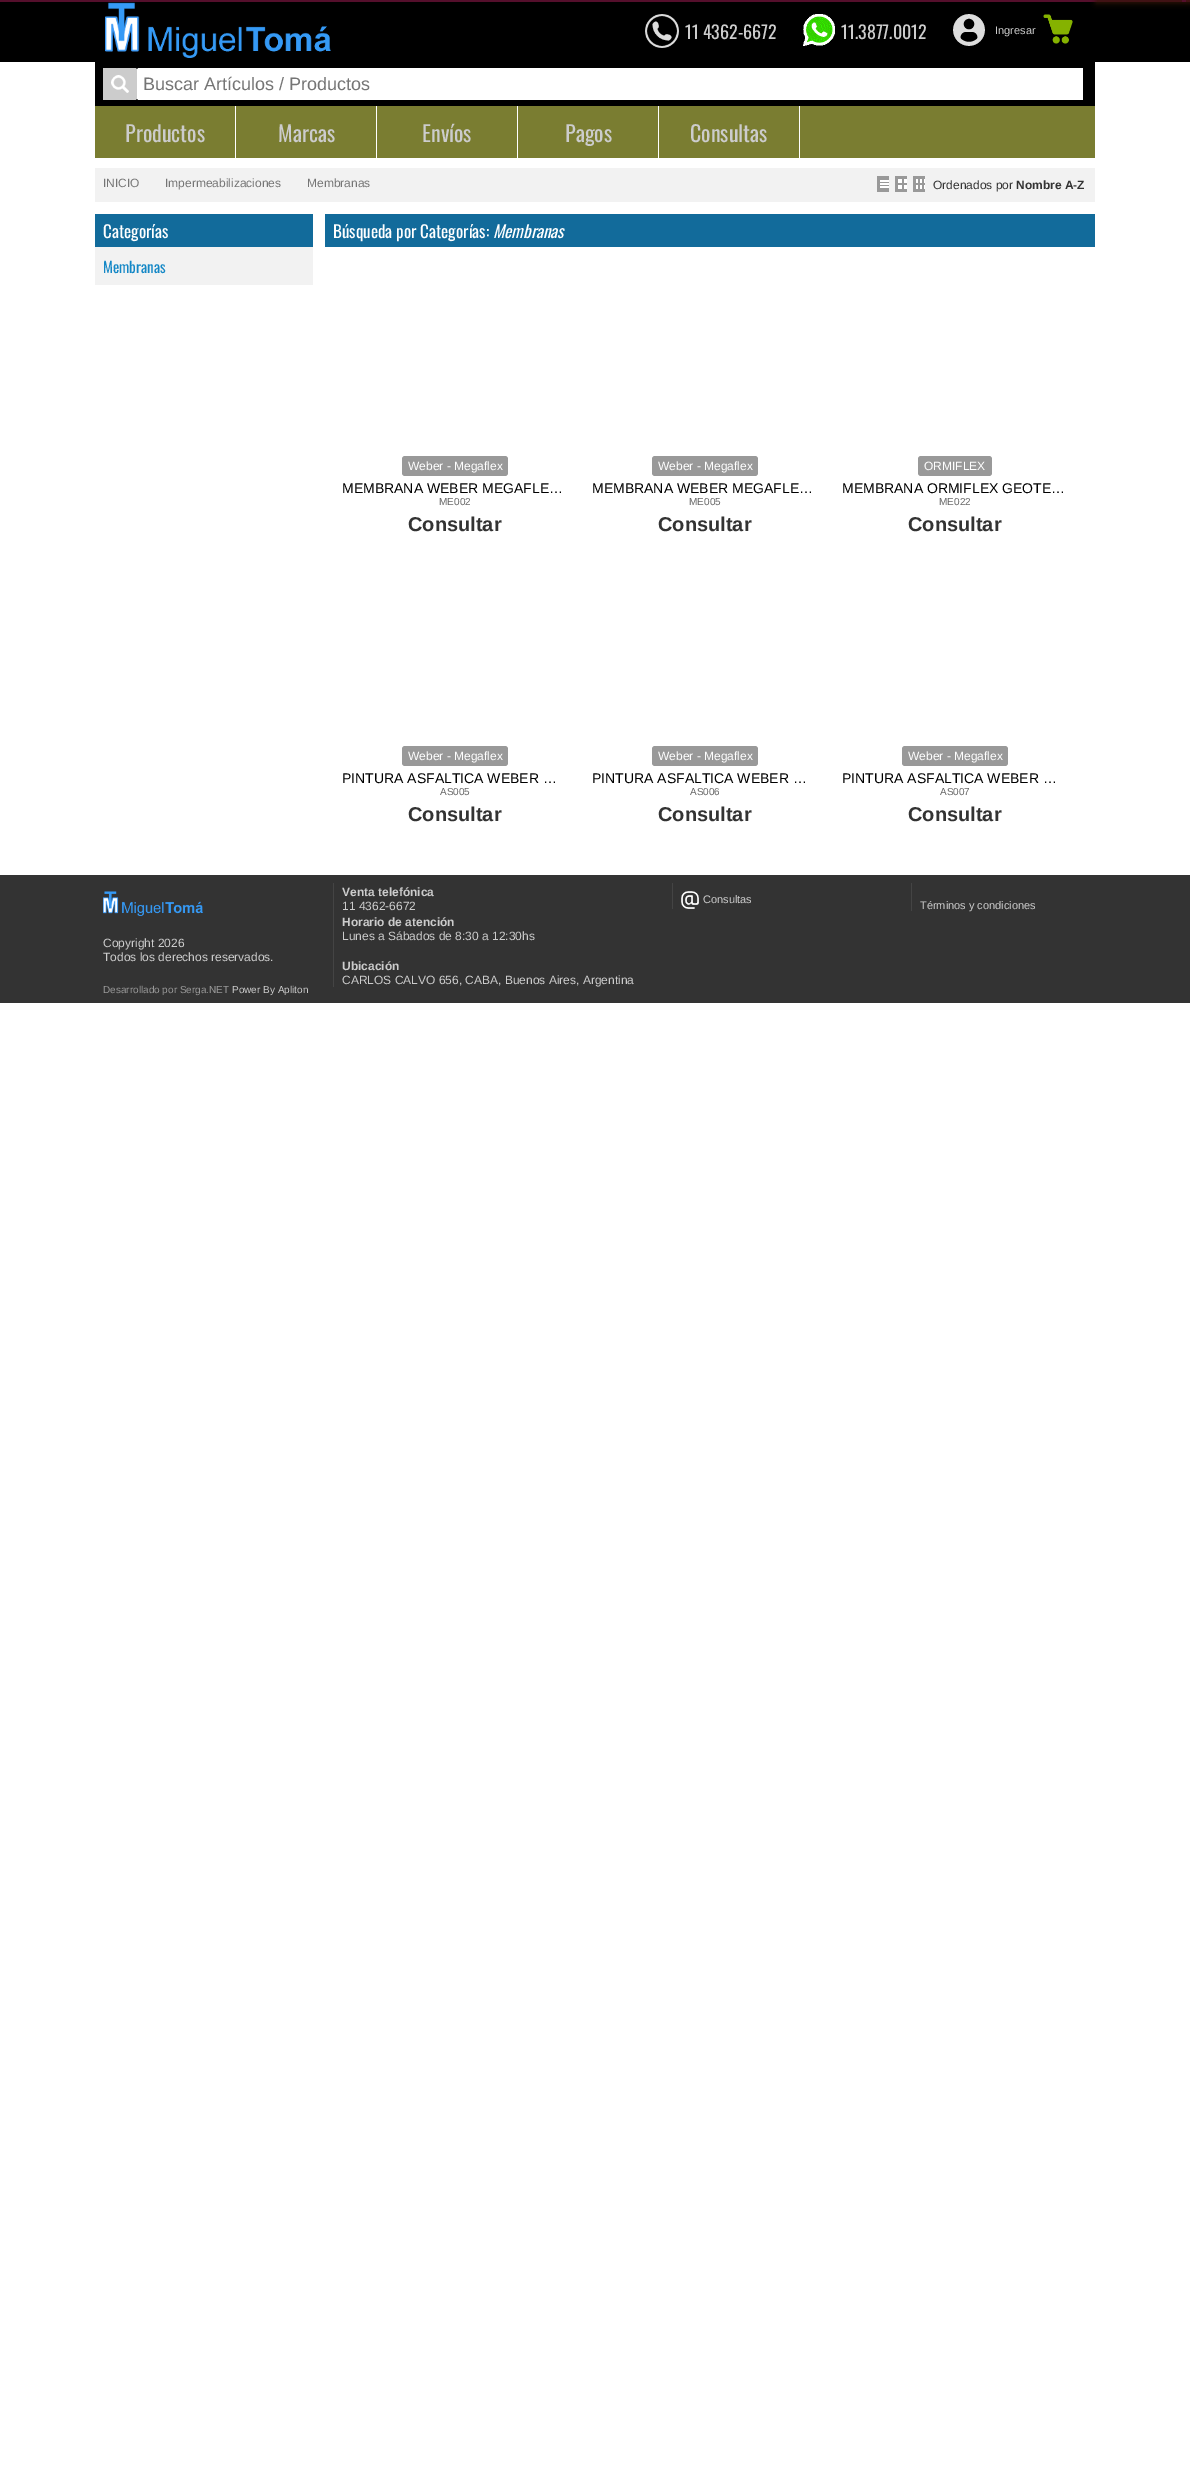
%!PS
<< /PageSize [1190 2480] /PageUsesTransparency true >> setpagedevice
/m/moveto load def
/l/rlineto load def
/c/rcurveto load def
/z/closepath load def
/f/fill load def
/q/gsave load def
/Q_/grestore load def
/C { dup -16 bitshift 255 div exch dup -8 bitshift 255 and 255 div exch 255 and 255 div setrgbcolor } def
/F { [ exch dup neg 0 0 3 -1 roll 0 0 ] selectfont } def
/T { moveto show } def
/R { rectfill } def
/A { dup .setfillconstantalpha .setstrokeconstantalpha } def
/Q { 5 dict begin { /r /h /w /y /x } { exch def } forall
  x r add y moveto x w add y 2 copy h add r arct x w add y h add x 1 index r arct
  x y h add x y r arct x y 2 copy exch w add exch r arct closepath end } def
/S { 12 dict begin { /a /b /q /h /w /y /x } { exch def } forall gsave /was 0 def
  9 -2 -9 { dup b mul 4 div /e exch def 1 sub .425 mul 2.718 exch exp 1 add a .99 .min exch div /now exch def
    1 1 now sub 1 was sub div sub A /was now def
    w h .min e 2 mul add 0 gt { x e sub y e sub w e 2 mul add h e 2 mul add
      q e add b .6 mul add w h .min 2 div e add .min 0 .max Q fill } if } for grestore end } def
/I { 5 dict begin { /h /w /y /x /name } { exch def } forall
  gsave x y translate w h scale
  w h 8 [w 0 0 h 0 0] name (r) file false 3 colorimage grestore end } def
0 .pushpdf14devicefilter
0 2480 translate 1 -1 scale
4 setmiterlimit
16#FFFFFF C
0 0 1190 2480 R
16#550F2C C
0 0 1190 2 R
16#000000 C
0 2 1190 60 R
q
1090 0 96 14 rectclip
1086 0 m 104 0 l 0 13 l -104 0 l z 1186 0 m 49.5 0 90 .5 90 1 c 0 .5 -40.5 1 -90 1 c -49.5 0 -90 -.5 -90 -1 c 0 -.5 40.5 -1 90 -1 c z eoclip newpath
16#371408 C
1096 -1 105 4 2 3 1 S
Q_
q
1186 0 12 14 rectclip
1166 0 m 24 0 l 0 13 l -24 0 l z 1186 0 m 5.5 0 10 .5 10 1 c 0 .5 -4.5 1 -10 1 c -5.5 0 -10 -.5 -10 -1 c 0 -.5 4.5 -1 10 -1 c z eoclip newpath
16#371408 C
1176 -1 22 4 2 3 1 S
Q_
(1.rgb) 105 2 226 56 I
(2.rgb) 645 14 34 34 I
/Oswald-Regular 18 F
16#CCCCCC C
(11 4362-6672) 685 39 T
(3.rgb) 803 14 32 32 I
(11.3877.0012) 841 39 T
(4.rgb) 953 14 32 32 I
/LiberationSans-Regular 11 F
(Ingresar) 995 34 T
(5.rgb) 1043 14 30 30 I
16#000000 C
95 62 1000 44 R
16#CCCCCC C
103 68 m 32 0 l 1 0 2 1 2 2 c 0 28 l 0 1 -1 2 -2 2 c -32 0 l z f
(6.rgb) 111 75 18 18 I
16#FFFFFF C
139 68 m 944 0 l 0 32 l -944 0 l -1 0 -2 -1 -2 -2 c 0 -28 l 0 -1 1 -2 2 -2 c z f
/LiberationSans-Regular 18 F
16#757575 C
(Buscar Artículos / Productos) 143 90 T
16#7A7D31 C
95 106 1000 52 R
16#FFFFFF C
235 106 1 52 R
/Oswald-Regular 22 F
16#CCCCCC C
(Productos) 125 142 T
16#FFFFFF C
376 106 1 52 R
16#CCCCCC C
(Marcas) 278 142 T
16#FFFFFF C
517 106 1 52 R
16#CCCCCC C
(Envíos) 422 142 T
16#FFFFFF C
658 106 1 52 R
16#CCCCCC C
(Pagos) 565 142 T
16#FFFFFF C
799 106 1 52 R
16#CCCCCC C
(Consultas) 690 142 T
16#F2F2F2 C
95 168 1000 34 R
/LiberationSans-Regular 12 F
16#757575 C
(INICIO) 103 187 T
(Impermeabilizaciones) 165 187 T
(Membranas) 307 187 T
16#999999 C
877 176 12 16 R
(7.rgb) 880 180 9 8 I
895 176 12 16 R
(8.rgb) 898 179 9 10 I
913 176 12 16 R
(9.rgb) 916 179 9 10 I
16#333333 C
(Ordenados por) 933 189 T
/LiberationSans-Bold 12 F
(Nombre A-Z) 1016 189 T
16#F2F2F2 C
95 247 218 38 R
16#126B9B C
95 214 218 33 R
/Oswald-Regular 17 F
16#FFFFFF C
(Categorías) 103 238 T
/Oswald-Regular 15 F
16#1588C6 C
(Membranas) 103 273 T
16#126B9B C
325 214 770 33 R
/Oswald-Regular 17 F
16#FFFFFF C
(Búsqueda por Categorías:) 333 238 T
/Oswald-Italic 17 F
(Membranas) 493 238 T
16#999999 C
402 456 106 20 3 Q f
/LiberationSans-Regular 12 F
16#FFFFFF C
(Weber - Megaflex) 408 470 T
/LiberationSans-Regular 14 F
16#000000 C
(MEMBRANA WEBER MEGAFLE…) 342 493 T
/LiberationSans-Regular 10 F
16#666666 C
(ME002) 439 505 T
/LiberationSans-Bold 20 F
16#333333 C
(Consultar) 408 531 T
16#999999 C
652 456 106 20 3 Q f
/LiberationSans-Regular 12 F
16#FFFFFF C
(Weber - Megaflex) 658 470 T
/LiberationSans-Regular 14 F
16#000000 C
(MEMBRANA WEBER MEGAFLE…) 592 493 T
/LiberationSans-Regular 10 F
16#666666 C
(ME005) 689 505 T
/LiberationSans-Bold 20 F
16#333333 C
(Consultar) 658 531 T
16#999999 C
918 456 74 20 3 Q f
/LiberationSans-Regular 12 F
16#FFFFFF C
(ORMIFLEX) 924 470 T
/LiberationSans-Regular 14 F
16#000000 C
(MEMBRANA ORMIFLEX GEOTE…) 842 493 T
/LiberationSans-Regular 10 F
16#666666 C
(ME022) 939 505 T
/LiberationSans-Bold 20 F
16#333333 C
(Consultar) 908 531 T
16#999999 C
402 746 106 20 3 Q f
/LiberationSans-Regular 12 F
16#FFFFFF C
(Weber - Megaflex) 408 760 T
/LiberationSans-Regular 14 F
16#000000 C
(PINTURA ASFALTICA WEBER …) 342 783 T
/LiberationSans-Regular 10 F
16#666666 C
(AS005) 440 795 T
/LiberationSans-Bold 20 F
16#333333 C
(Consultar) 408 821 T
16#999999 C
652 746 106 20 3 Q f
/LiberationSans-Regular 12 F
16#FFFFFF C
(Weber - Megaflex) 658 760 T
/LiberationSans-Regular 14 F
16#000000 C
(PINTURA ASFALTICA WEBER …) 592 783 T
/LiberationSans-Regular 10 F
16#666666 C
(AS006) 690 795 T
/LiberationSans-Bold 20 F
16#333333 C
(Consultar) 658 821 T
16#999999 C
902 746 106 20 3 Q f
/LiberationSans-Regular 12 F
16#FFFFFF C
(Weber - Megaflex) 908 760 T
/LiberationSans-Regular 14 F
16#000000 C
(PINTURA ASFALTICA WEBER …) 842 783 T
/LiberationSans-Regular 10 F
16#666666 C
(AS007) 940 795 T
/LiberationSans-Bold 20 F
16#333333 C
(Consultar) 908 821 T
0 875 1190 128 R
16#444444 C
333 883 1 104 R
/LiberationSans-Bold 12 F
16#CCCCCC C
(Venta telefónica) 342 896 T
/LiberationSans-Regular 12 F
(11 4362-6672) 342 910 T
/LiberationSans-Bold 12 F
(Horario de atención) 342 926 T
/LiberationSans-Regular 12 F
(Lunes a Sábados de 8:30 a 12:30hs) 342 940 T
/LiberationSans-Bold 12 F
(Ubicación) 342 970 T
/LiberationSans-Regular 12 F
(CARLOS CALVO 656, CABA, Buenos Aires, Argentina) 342 984 T
16#444444 C
672 883 1 26 R
(10.rgb) 681 891 18 18 I
/LiberationSans-Regular 11 F
16#CCCCCC C
(Consultas) 703 903 T
16#444444 C
911 883 1 28 R
16#CCCCCC C
(Términos y condiciones) 920 909 T
(11.rgb) 103 891 100 25 I
/LiberationSans-Regular 12 F
(Copyright 2026) 103 947 T
(Todos los derechos reservados.) 103 961 T
/LiberationSans-Regular 10 F
16#999999 C
(Desarrollado por Serga.NET) 103 993 T
16#CCCCCC C
(Power By Apliton) 232 993 T
.poppdf14devicefilter showpage
